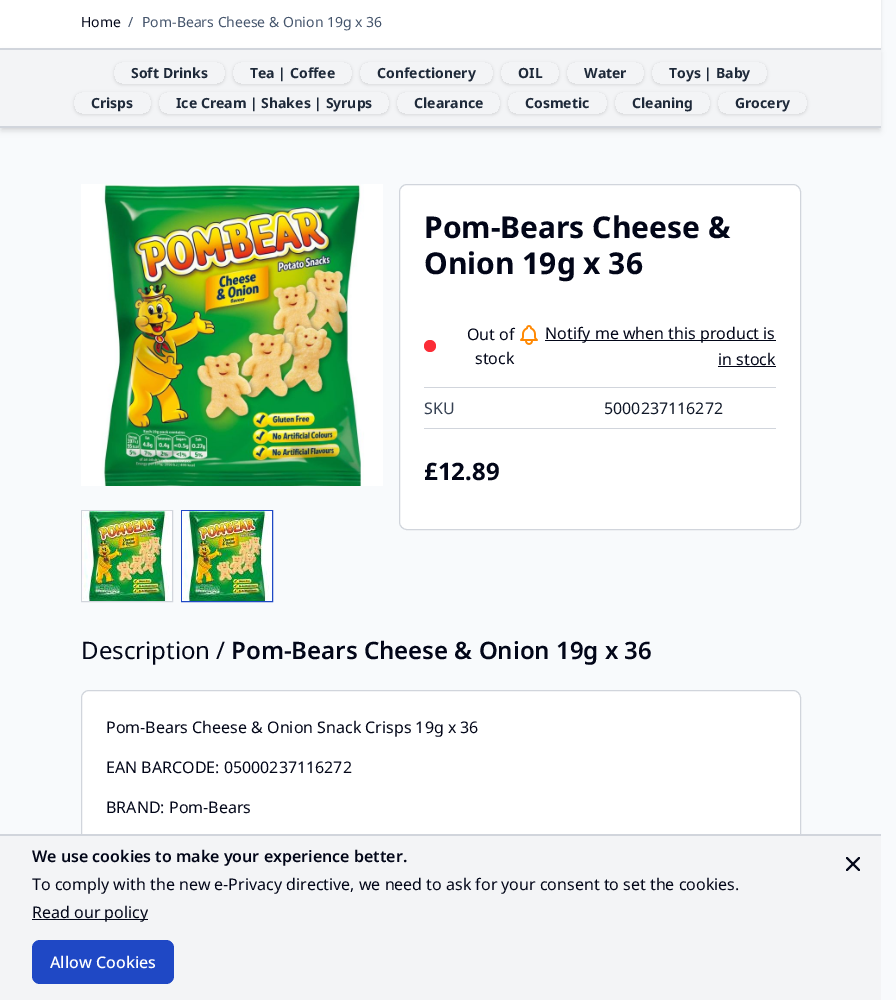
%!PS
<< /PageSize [896 1000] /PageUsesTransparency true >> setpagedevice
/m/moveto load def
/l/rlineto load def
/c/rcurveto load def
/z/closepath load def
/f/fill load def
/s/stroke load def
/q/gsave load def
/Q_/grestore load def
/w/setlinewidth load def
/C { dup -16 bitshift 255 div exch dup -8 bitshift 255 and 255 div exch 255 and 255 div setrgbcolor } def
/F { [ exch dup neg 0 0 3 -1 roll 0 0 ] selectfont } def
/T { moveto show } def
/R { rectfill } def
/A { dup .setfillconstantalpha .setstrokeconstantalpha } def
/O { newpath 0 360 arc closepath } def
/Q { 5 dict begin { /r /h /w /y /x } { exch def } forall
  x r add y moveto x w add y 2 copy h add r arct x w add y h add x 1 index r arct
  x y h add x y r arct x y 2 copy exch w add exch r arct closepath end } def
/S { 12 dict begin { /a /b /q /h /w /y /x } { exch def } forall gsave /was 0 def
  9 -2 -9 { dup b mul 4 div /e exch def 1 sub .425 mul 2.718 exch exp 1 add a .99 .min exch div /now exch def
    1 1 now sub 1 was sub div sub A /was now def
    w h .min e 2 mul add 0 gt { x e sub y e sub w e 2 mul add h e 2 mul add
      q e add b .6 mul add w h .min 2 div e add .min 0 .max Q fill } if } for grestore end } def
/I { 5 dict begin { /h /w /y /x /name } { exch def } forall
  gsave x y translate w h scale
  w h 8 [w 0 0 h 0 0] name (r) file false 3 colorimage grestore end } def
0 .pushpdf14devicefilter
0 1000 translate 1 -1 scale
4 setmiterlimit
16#F8FAFC C
0 0 896 1000 R
16#000000 C
0 -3 881 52 0 1.5 .1 S
16#FFFFFF C
0 0 881 48 R
/NotoSans-Regular 14 F
16#020618 C
(Home) 81 27 T
16#45556C C
(/) 128 27 T
(Pom-Bears Cheese & Onion 19g x 36) 142 27 T
16#000000 C
2 52 877 76 0 2 .1 S
1 53 879 78 0 3 .1 S
16#F3F4F6 C
0 50 881 76 R
16#D1D5DC C
0 48 881 2 R
0 126 881 2 R
q
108 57 m 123 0 l 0 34 l -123 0 l z 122 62 m 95 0 l 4.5 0 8 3.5 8 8 c 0 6 l 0 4.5 -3.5 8 -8 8 c -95 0 l -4.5 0 -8 -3.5 -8 -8 c 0 -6 l 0 -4.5 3.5 -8 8 -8 c z eoclip newpath
16#000000 C
114 63 111 22 8 1.5 .1 S
Q_
/NotoSans-Bold 14 F
16#1E2939 C
(Soft Drinks) 131 78 T
q
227 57 m 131 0 l 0 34 l -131 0 l z 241 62 m 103 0 l 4.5 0 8 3.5 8 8 c 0 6 l 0 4.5 -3.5 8 -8 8 c -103 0 l -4.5 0 -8 -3.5 -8 -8 c 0 -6 l 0 -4.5 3.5 -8 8 -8 c z eoclip newpath
16#000000 C
233 63 119 22 8 1.5 .1 S
Q_
(Tea | Coffee) 250 78 T
q
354 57 m 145 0 l 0 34 l -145 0 l z 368 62 m 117 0 l 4.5 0 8 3.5 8 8 c 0 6 l 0 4.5 -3.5 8 -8 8 c -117 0 l -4.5 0 -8 -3.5 -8 -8 c 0 -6 l 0 -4.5 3.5 -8 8 -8 c z eoclip newpath
16#000000 C
360 63 133 22 8 1.5 .1 S
Q_
(Confectionery) 377 78 T
q
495 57 m 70 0 l 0 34 l -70 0 l z 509 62 m 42 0 l 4.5 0 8 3.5 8 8 c 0 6 l 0 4.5 -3.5 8 -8 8 c -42 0 l -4.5 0 -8 -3.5 -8 -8 c 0 -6 l 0 -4.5 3.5 -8 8 -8 c z eoclip newpath
16#000000 C
501 63 58 22 8 1.5 .1 S
Q_
(OIL) 518 78 T
q
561 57 m 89 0 l 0 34 l -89 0 l z 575 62 m 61 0 l 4.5 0 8 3.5 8 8 c 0 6 l 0 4.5 -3.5 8 -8 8 c -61 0 l -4.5 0 -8 -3.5 -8 -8 c 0 -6 l 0 -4.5 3.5 -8 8 -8 c z eoclip newpath
16#000000 C
567 63 77 22 8 1.5 .1 S
Q_
(Water) 584 78 T
q
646 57 m 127 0 l 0 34 l -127 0 l z 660 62 m 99 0 l 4.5 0 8 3.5 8 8 c 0 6 l 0 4.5 -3.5 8 -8 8 c -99 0 l -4.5 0 -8 -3.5 -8 -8 c 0 -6 l 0 -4.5 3.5 -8 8 -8 c z eoclip newpath
16#000000 C
652 63 115 22 8 1.5 .1 S
Q_
(Toys | Baby) 669 78 T
q
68 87 m 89 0 l 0 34 l -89 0 l z 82 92 m 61 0 l 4.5 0 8 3.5 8 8 c 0 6 l 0 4.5 -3.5 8 -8 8 c -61 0 l -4.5 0 -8 -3.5 -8 -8 c 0 -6 l 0 -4.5 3.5 -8 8 -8 c z eoclip newpath
16#000000 C
74 93 77 22 8 1.5 .1 S
Q_
(Crisps) 91 108 T
q
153 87 m 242 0 l 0 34 l -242 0 l z 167 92 m 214 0 l 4.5 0 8 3.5 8 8 c 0 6 l 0 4.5 -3.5 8 -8 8 c -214 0 l -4.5 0 -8 -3.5 -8 -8 c 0 -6 l 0 -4.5 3.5 -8 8 -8 c z eoclip newpath
16#000000 C
159 93 230 22 8 1.5 .1 S
Q_
(Ice Cream | Shakes | Syrups) 176 108 T
q
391 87 m 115 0 l 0 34 l -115 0 l z 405 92 m 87 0 l 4.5 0 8 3.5 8 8 c 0 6 l 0 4.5 -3.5 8 -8 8 c -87 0 l -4.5 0 -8 -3.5 -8 -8 c 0 -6 l 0 -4.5 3.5 -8 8 -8 c z eoclip newpath
16#000000 C
397 93 103 22 8 1.5 .1 S
Q_
(Clearance) 414 108 T
q
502 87 m 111 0 l 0 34 l -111 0 l z 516 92 m 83 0 l 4.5 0 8 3.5 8 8 c 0 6 l 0 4.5 -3.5 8 -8 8 c -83 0 l -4.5 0 -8 -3.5 -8 -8 c 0 -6 l 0 -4.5 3.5 -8 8 -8 c z eoclip newpath
16#000000 C
508 93 99 22 8 1.5 .1 S
Q_
(Cosmetic) 525 108 T
q
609 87 m 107 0 l 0 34 l -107 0 l z 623 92 m 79 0 l 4.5 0 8 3.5 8 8 c 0 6 l 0 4.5 -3.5 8 -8 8 c -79 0 l -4.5 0 -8 -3.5 -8 -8 c 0 -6 l 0 -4.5 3.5 -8 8 -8 c z eoclip newpath
16#000000 C
615 93 95 22 8 1.5 .1 S
Q_
(Cleaning) 632 108 T
q
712 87 m 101 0 l 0 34 l -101 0 l z 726 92 m 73 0 l 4.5 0 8 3.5 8 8 c 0 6 l 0 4.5 -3.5 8 -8 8 c -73 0 l -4.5 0 -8 -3.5 -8 -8 c 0 -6 l 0 -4.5 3.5 -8 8 -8 c z eoclip newpath
16#000000 C
718 93 89 22 8 1.5 .1 S
Q_
(Grocery) 735 108 T
(1.rgb) 81 184 302 302 I
16#D1D5DC C
81.5 510.5 91 91 rectstroke
(2.rgb) 82 511 90 90 I
16#1F48C5 C
181.5 510.5 91 91 rectstroke
(3.rgb) 182 511 90 90 I
16#FFFFFF C
399.5 184.5 401 345 7.5 Q q f Q_
16#D1D5DC C
s
/NotoSans-Bold 30 F
16#020618 C
(Pom-Bears Cheese &) 424 238 T
(Onion 19g x 36) 424 274 T
/NotoSans-Regular 16 F
(Out of) 467 340 T
16#FB2C36 C
430 346 6 O f
16#020618 C
(stock) 475 364 T
(4.rgb) 520 325 18 20 I
545 340 231 1 R
(Notify me when this product is) 545 339 T
(in stock) 718 365 T
718 366 58 1 R
16#D1D5DC C
424 387 352 1 R
424 428 352 1 R
16#364153 C
(SKU) 424 414 T
16#101828 C
(5000237116272) 604 414 T
/NotoSans-Bold 24 F
16#020618 C
(£12.89) 424 480 T
/NotoSans-Regular 24 F
(Description /) 81 659 T
/NotoSans-SemiBold 24 F
(Pom-Bears Cheese & Onion 19g x 36) 231 659 T
16#FFFFFF C
81.5 690.5 719 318 7.5 Q q f Q_
16#D1D5DC C
s
/NotoSans-Regular 16 F
16#020618 C
(Pom-Bears Cheese & Onion Snack Crisps 19g x 36) 106 733 T
(EAN BARCODE: 05000237116272) 106 773 T
(BRAND: Pom-Bears) 106 813 T
16#F3F4F6 C
0 836 881 164 R
16#D1D5DC C
0 834 881 2 R
/NotoSans-SemiBold 16 F
16#020618 C
(We use cookies to make your experience better.) 32 862 T
/NotoSans-Regular 16 F
(To comply with the new e-Privacy directive, we need to ask for your consent to set the cookies.) 32 890 T
32 919 116 1 R
(Read our policy) 32 918 T
16#1F48C5 C
32 940 142 44 8 Q f
/NotoSans-Medium 16 F
16#FFFFFF C
(Allow Cookies) 50 968 T
16#020618 C
2 w
1 setlinecap
1 setlinejoin
847 870 m 12 -12 l 847 858 m 12 12 l s
.poppdf14devicefilter showpage
